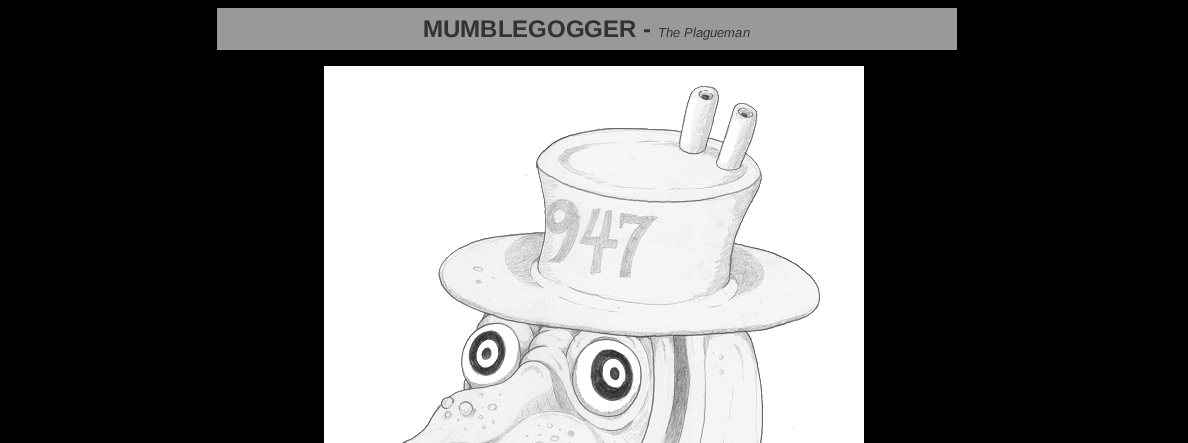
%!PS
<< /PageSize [1188 443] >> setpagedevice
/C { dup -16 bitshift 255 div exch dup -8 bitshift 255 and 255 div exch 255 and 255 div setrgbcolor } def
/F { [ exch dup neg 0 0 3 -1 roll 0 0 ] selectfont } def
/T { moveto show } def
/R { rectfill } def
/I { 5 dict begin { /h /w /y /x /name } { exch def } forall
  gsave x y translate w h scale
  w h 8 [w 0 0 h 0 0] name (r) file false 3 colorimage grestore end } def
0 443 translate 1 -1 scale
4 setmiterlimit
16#000000 C
0 0 1188 443 R
16#999999 C
217 8 740 42 R
/LiberationSans-Bold 24 F
16#333333 C
(MUMBLEGOGGER -) 423 37 T
/LiberationSans-Italic 13 F
(The Plagueman) 658 37 T
(1.rgb) 324 66 540 377 I
showpage
